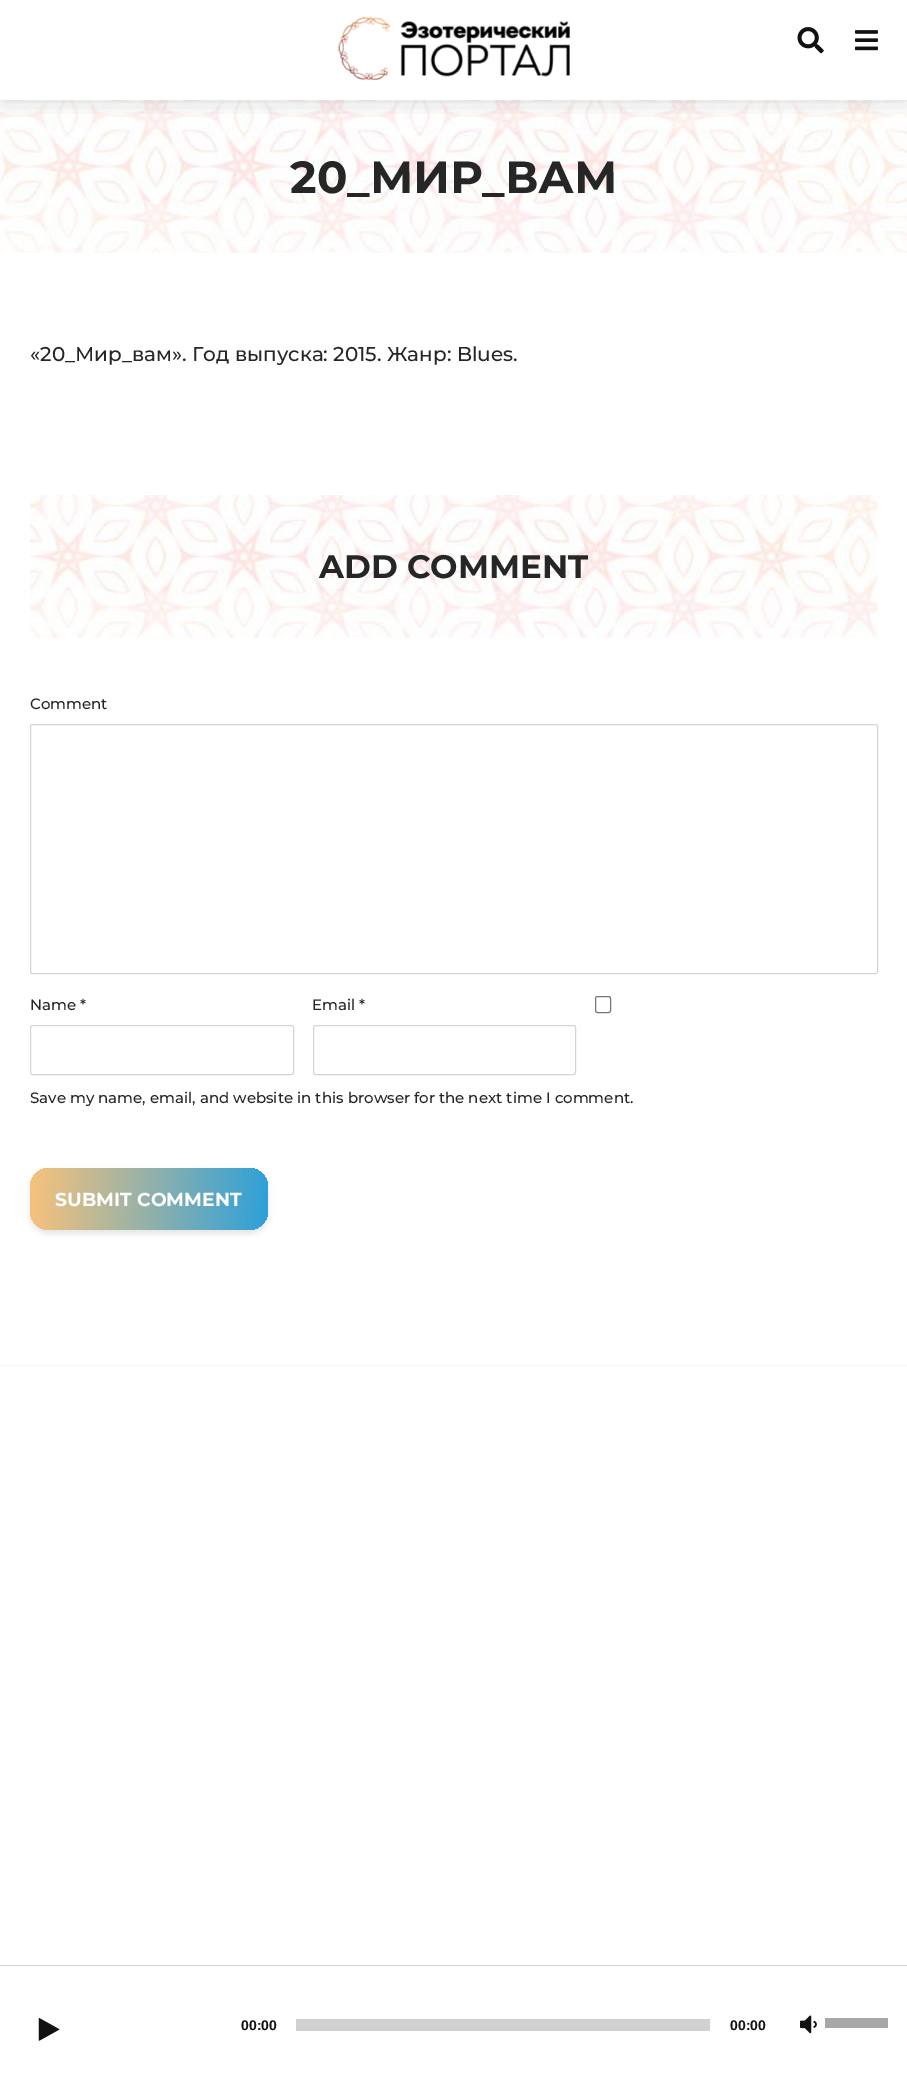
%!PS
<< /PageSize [907 2077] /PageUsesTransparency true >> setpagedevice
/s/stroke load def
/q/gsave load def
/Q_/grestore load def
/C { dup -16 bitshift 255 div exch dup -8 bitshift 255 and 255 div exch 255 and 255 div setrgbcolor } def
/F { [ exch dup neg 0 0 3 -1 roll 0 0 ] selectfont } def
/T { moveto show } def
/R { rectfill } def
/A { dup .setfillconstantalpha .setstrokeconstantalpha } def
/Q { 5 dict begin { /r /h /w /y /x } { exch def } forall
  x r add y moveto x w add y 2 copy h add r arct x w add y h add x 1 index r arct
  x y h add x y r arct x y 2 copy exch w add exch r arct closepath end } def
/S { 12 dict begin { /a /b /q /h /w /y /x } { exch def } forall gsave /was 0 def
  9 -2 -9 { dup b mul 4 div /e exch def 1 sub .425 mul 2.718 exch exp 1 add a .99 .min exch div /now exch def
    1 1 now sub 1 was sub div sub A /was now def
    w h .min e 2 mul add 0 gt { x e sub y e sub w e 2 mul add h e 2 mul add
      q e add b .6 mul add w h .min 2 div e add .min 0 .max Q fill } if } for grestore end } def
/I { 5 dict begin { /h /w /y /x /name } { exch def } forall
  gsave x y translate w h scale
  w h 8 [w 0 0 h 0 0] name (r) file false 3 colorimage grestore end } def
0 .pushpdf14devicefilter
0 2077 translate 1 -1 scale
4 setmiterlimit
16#FFFFFF C
0 0 907 2077 R
(4.rgb) 0 100 907 153 I
q
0 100 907 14 rectclip
16#000000 C
0 0 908 100 0 12.5 .15 S
Q_
(1.rgb) 338 17 232 63 I
(2.rgb) 797 27 27 27 I
(3.rgb) 855 30 23 21 I
/Montserrat-Bold 45 F
16#262626 C
(20_МИР_ВАМ) 290 193 T
/Montserrat-Medium 20 F
(«20_Мир_вам». Год выпуска: 2015. Жанр: Blues.) 30 361 T
16#D1D1D1 C
0 1965 907 1 R
(5.rgb) 38 2018 22 23 I
/LiberationSans-Bold 14 F
16#111111 C
(00:00) 241 2030 T
16#D1D1D1 C
296 2019 414 12 R
16#111111 C
(00:00) 730 2030 T
(6.rgb) 800 2015 17 19 I
16#A7A7A7 C
825 2018 63 10 R
(7.rgb) 30 495 848 143 I
/Montserrat-Bold 32.5 F
16#262626 C
(ADD COMMENT) 319 578 T
/Montserrat-Medium 15 F
(Comment) 30 709 T
16#D4D4D4 C
30.5 724.5 847 249 2 Q s
16#262626 C
(Name *) 30 1010 T
16#D4D4D4 C
30.5 1025.5 263 49 2 Q s
16#262626 C
(Email *) 312 1010 T
16#D4D4D4 C
313.5 1025.5 262 49 2 Q s
16#767676 C
595.5 996.5 15 16 2 Q s
16#262626 C
(Save my name, email, and website in this browser for the next time I comment.) 30 1103 T
16#000000 C
30 1171 238 63 19 3 .1 S
q 30 1168 238 62 19 Q clip newpath
<< /ShadingType 2 /ColorSpace /DeviceRGB /Coords [269 1204 29 1194] /Extend [true true] /Function << /FunctionType 2 /Domain [0 1] /C0 [.176 .627 .851] /C1 [.973 .761 .482] /N 1 >> >> shfill Q_
/Montserrat-Bold 18.75 F
16#FFFFFF C
(SUBMIT COMMENT) 55 1206 T
16#F4F5F6 C
0 1365 907 1 R
.poppdf14devicefilter showpage
